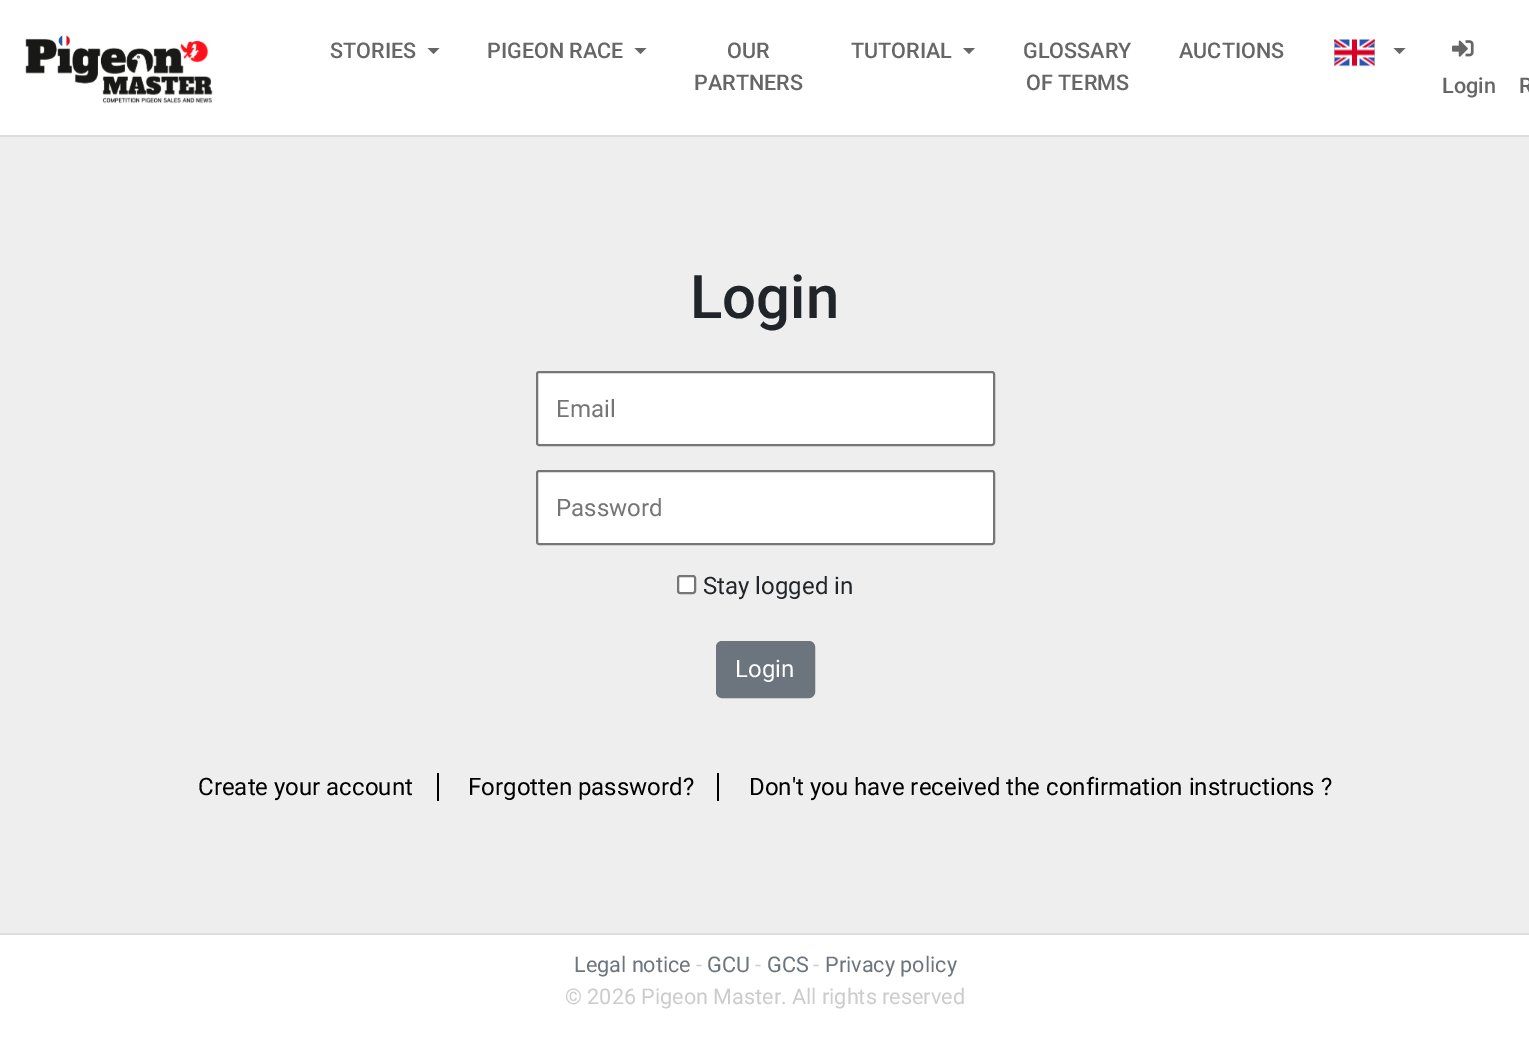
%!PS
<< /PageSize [1529 1053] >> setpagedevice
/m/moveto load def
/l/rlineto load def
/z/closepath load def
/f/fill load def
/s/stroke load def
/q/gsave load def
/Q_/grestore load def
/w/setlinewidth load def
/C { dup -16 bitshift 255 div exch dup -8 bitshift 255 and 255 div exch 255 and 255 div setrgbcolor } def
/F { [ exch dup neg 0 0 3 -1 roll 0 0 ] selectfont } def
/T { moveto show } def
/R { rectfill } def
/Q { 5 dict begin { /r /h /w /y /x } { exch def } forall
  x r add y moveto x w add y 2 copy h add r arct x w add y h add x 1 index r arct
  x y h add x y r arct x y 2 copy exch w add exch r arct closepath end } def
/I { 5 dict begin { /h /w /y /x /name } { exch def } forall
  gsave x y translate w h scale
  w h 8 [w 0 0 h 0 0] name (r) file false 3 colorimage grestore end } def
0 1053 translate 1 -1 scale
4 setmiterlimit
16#EEEEEE C
0 0 1529 1053 R
16#FFFFFF C
0 0 1529 135 R
16#DDDDDD C
0 135 1529 2 R
(1.rgb) 25 35 188 69 I
/Roboto-Medium 21.6 F
16#666666 C
(STORIES) 330 58 T
427.5 48 m 12 0 l -6 6 l z f
(PIGEON RACE) 487 58 T
634.5 48 m 12 0 l -6 6 l z f
(OUR) 727 58 T
(PARTNERS) 694 90 T
(TUTORIAL) 851 58 T
963 48 m 12 0 l -6 6 l z f
(GLOSSARY) 1023 58 T
(OF TERMS) 1026 90 T
(AUCTIONS) 1179 58 T
(2.rgb) 1334 39 41 28 I
1393.5 48 m 12 0 l -6 6 l z f
(3.rgb) 1452 40 22 17 I
(Login) 1442 93 T
(R) 1519 93 T
/Roboto-Medium 60 F
16#212529 C
(Login) 690 318 T
16#FFFFFF C
537 372 457 73 2 Q q f Q_
16#767676 C
2 w
s
/Roboto-Regular 24 F
16#757575 C
(Email) 556 417 T
16#FFFFFF C
537 471 457 73 2 Q q f Q_
16#767676 C
s
16#757575 C
(Password) 556 516 T
16#FFFFFF C
678 576 17 17 2 Q q f Q_
16#767676 C
s
16#212529 C
(Stay logged in) 703 594 T
16#6C757D C
717 642 97 55 5 Q q f Q_
s
16#FFFFFF C
(Login) 735 677 T
16#000000 C
(Create your account) 198 795 T
437 773 2 28 R
(Forgotten password?) 468 795 T
717 773 2 28 R
(Don't you have received the confirmation instructions ?) 749 795 T
16#FFFFFF C
0 935 1529 118 R
16#DDDDDD C
0 933 1529 2 R
/Roboto-Regular 21.6 F
16#6C757D C
(Legal notice) 574 972 T
16#CCCCCC C
(-) 696 972 T
16#6C757D C
(GCU) 707 972 T
16#CCCCCC C
(-) 755 972 T
16#6C757D C
(GCS) 767 972 T
16#CCCCCC C
(-) 813 972 T
16#6C757D C
(Privacy policy) 825 972 T
16#CCCCCC C
(© 2026 Pigeon Master. All rights reserved) 565 1004 T
showpage
